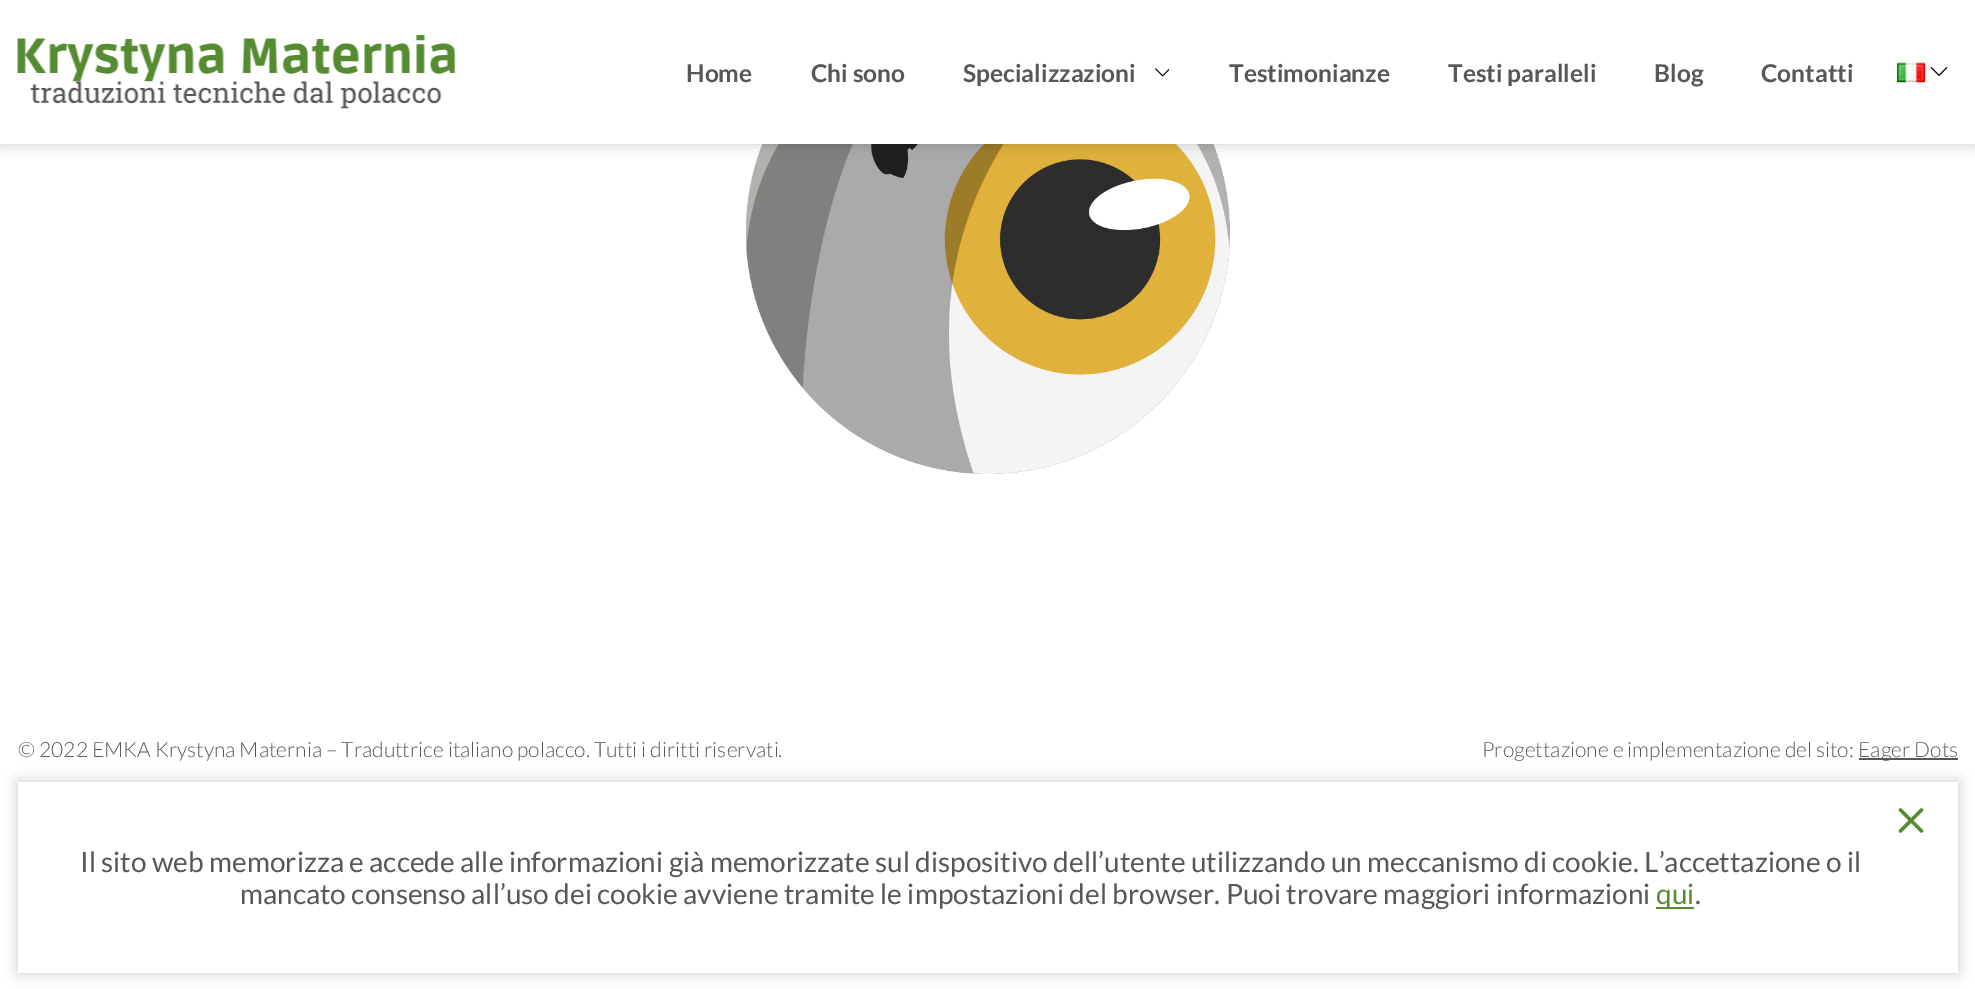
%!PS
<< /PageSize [1975 989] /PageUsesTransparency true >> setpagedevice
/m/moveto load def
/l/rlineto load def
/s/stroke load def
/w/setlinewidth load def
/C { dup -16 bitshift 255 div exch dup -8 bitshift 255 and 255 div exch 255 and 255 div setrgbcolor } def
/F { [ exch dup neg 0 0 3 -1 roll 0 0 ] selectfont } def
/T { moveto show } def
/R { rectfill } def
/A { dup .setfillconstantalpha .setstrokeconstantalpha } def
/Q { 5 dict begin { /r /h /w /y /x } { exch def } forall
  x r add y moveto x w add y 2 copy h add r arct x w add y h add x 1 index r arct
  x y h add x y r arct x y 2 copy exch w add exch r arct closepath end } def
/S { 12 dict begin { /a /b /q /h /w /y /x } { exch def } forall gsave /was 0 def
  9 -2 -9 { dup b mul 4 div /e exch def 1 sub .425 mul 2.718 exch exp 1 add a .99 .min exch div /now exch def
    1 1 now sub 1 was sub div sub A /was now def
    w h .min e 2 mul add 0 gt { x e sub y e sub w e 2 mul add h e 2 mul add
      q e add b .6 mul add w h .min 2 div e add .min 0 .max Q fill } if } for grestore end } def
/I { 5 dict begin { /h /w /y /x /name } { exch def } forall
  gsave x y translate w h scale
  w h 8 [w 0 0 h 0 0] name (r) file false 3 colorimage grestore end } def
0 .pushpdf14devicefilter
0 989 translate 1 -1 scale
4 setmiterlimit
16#FFFFFF C
0 0 1975 989 R
(5.rgb) 746 144 484 330 I
16#000000 C
0 0 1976 144 0 7 .2 S
16#FFFFFF C
0 0 1975 144 R
(1.rgb) 17 35 439 74 I
/Lato-Bold 24.5 F
16#575756 C
(Home) 686 82 T
(Chi sono) 811 82 T
(Specializzazioni) 963 82 T
(2.rgb) 1155 68 14 9 I
(Testimonianze) 1229 82 T
(Testi paralleli) 1448 82 T
(Blog) 1654 82 T
(Contatti) 1761 82 T
(3.rgb) 1897 62 28 21 I
(4.rgb) 1930 67 18 9 I
/Lato-Light 21 F
(© 2022 EMKA Krystyna Maternia – Traduttrice italiano polacco. Tutti i diritti riservati.) 18 757 T
(Progettazione e implementazione del sito:) 1482 757 T
1859 758 99 2 R
(Eager Dots) 1858 757 T
16#000000 C
18 782 1940 191 0 7 .2 S
16#FFFFFF C
18 782 1940 191 R
16#558C31 C
3.5 w
1 setlinecap
1 setlinejoin
1921.5 810 m -21 21 l 1900.5 810 m 21 21 l s
/Lato-Regular 28 F
16#575756 C
(Il sito web memorizza e accede alle informazioni già memorizzate sul dispositivo dell’utente utilizzando un meccanismo di cookie. L’accettazione o il) 80 872 T
(mancato consenso all’uso dei cookie avviene tramite le impostazioni del browser. Puoi trovare maggiori informazioni) 240 904 T
16#558C31 C
1656 907 38 2 R
(qui) 1656 904 T
16#575756 C
(.) 1695 904 T
.poppdf14devicefilter showpage
